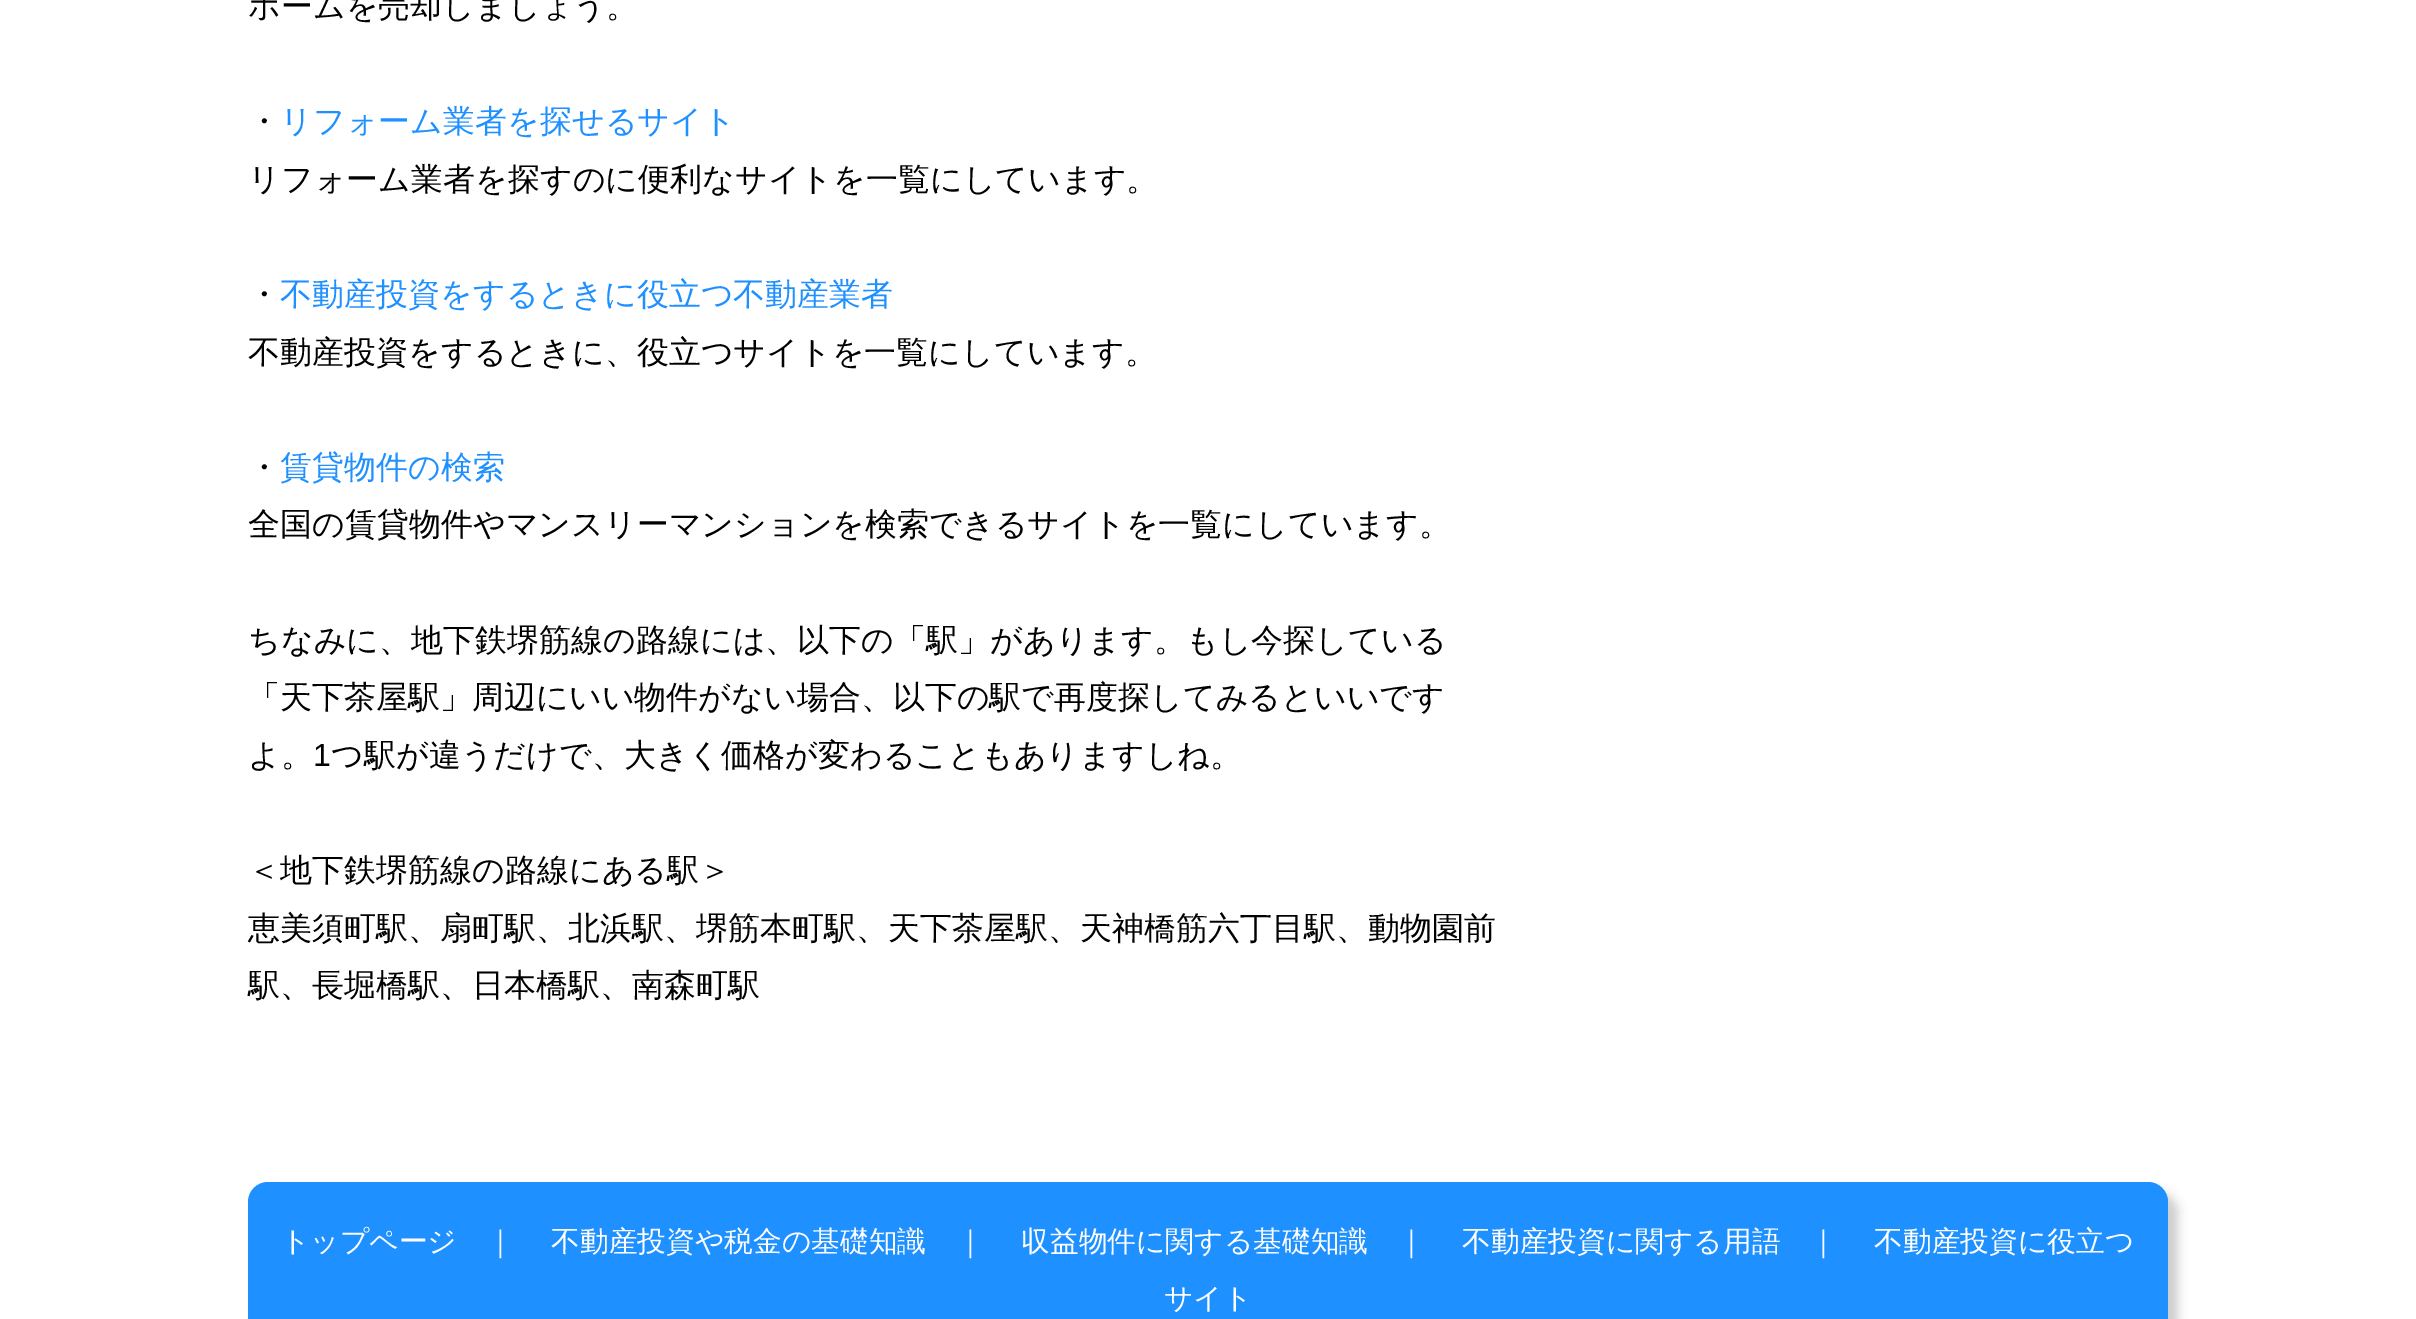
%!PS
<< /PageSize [2416 1319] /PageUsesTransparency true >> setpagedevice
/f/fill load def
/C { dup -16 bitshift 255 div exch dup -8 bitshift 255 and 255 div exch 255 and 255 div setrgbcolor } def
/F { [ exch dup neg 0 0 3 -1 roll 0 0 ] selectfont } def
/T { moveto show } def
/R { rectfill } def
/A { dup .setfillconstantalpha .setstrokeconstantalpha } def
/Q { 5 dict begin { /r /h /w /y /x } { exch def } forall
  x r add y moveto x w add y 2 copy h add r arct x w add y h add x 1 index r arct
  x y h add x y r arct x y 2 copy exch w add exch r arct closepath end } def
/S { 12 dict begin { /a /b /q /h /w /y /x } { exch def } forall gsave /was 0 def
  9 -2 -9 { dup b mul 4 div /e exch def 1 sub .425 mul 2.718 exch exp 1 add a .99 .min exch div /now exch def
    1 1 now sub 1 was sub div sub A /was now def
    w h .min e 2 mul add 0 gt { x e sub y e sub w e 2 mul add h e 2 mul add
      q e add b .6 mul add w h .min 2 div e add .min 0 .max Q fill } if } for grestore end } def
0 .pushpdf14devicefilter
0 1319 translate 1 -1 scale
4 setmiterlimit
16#FFFFFF C
0 0 2416 1319 R
/WenQuanYiZenHei-Medium 32 F
16#000000 C
(ホームを売却しましょう。) 248 17 T
(・) 248 132 T
16#1E90FF C
(リフォーム業者を探せるサイト) 280 132 T
16#000000 C
(リフォーム業者を探すのに便利なサイトを一覧にしています。) 248 190 T
(・) 248 305 T
16#1E90FF C
(不動産投資をするときに役立つ不動産業者) 280 305 T
16#000000 C
(不動産投資をするときに、役立つサイトを一覧にしています。) 248 363 T
(・) 248 478 T
16#1E90FF C
(賃貸物件の検索) 280 478 T
16#000000 C
(全国の賃貸物件やマンスリーマンションを検索できるサイトを一覧にしています。) 248 535 T
(ちなみに、地下鉄堺筋線の路線には、以下の「駅」があります。もし今探している) 248 651 T
(「天下茶屋駅」周辺にいい物件がない場合、以下の駅で再度探してみるといいです) 248 708 T
(よ。) 248 766 T
/LiberationSans-Regular 32 F
(1) 313 766 T
/WenQuanYiZenHei-Medium 32 F
(つ駅が違うだけで、大きく価格が変わることもありますしね。) 331 766 T
(＜地下鉄堺筋線の路線にある駅＞) 248 881 T
(恵美須町駅、扇町駅、北浜駅、堺筋本町駅、天下茶屋駅、天神橋筋六丁目駅、動物園前) 248 939 T
(駅、長堀橋駅、日本橋駅、南森町駅) 248 996 T
16#CCCCCC C
258 1192 1920 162 20 5 1 S
16#1E90FF C
248 1182 1920 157 20 Q f
/WenQuanYiZenHei-Medium 28.75 F
16#FFFFFF C
(トップページ) 281 1251 T
(｜) 486 1251 T
(不動産投資や税金の基礎知識) 551 1251 T
(｜) 956 1251 T
(収益物件に関する基礎知識) 1021 1251 T
(｜) 1397 1251 T
(不動産投資に関する用語) 1462 1251 T
(｜) 1809 1251 T
(不動産投資に役立つ) 1874 1251 T
(サイト) 1164 1308 T
.poppdf14devicefilter showpage
